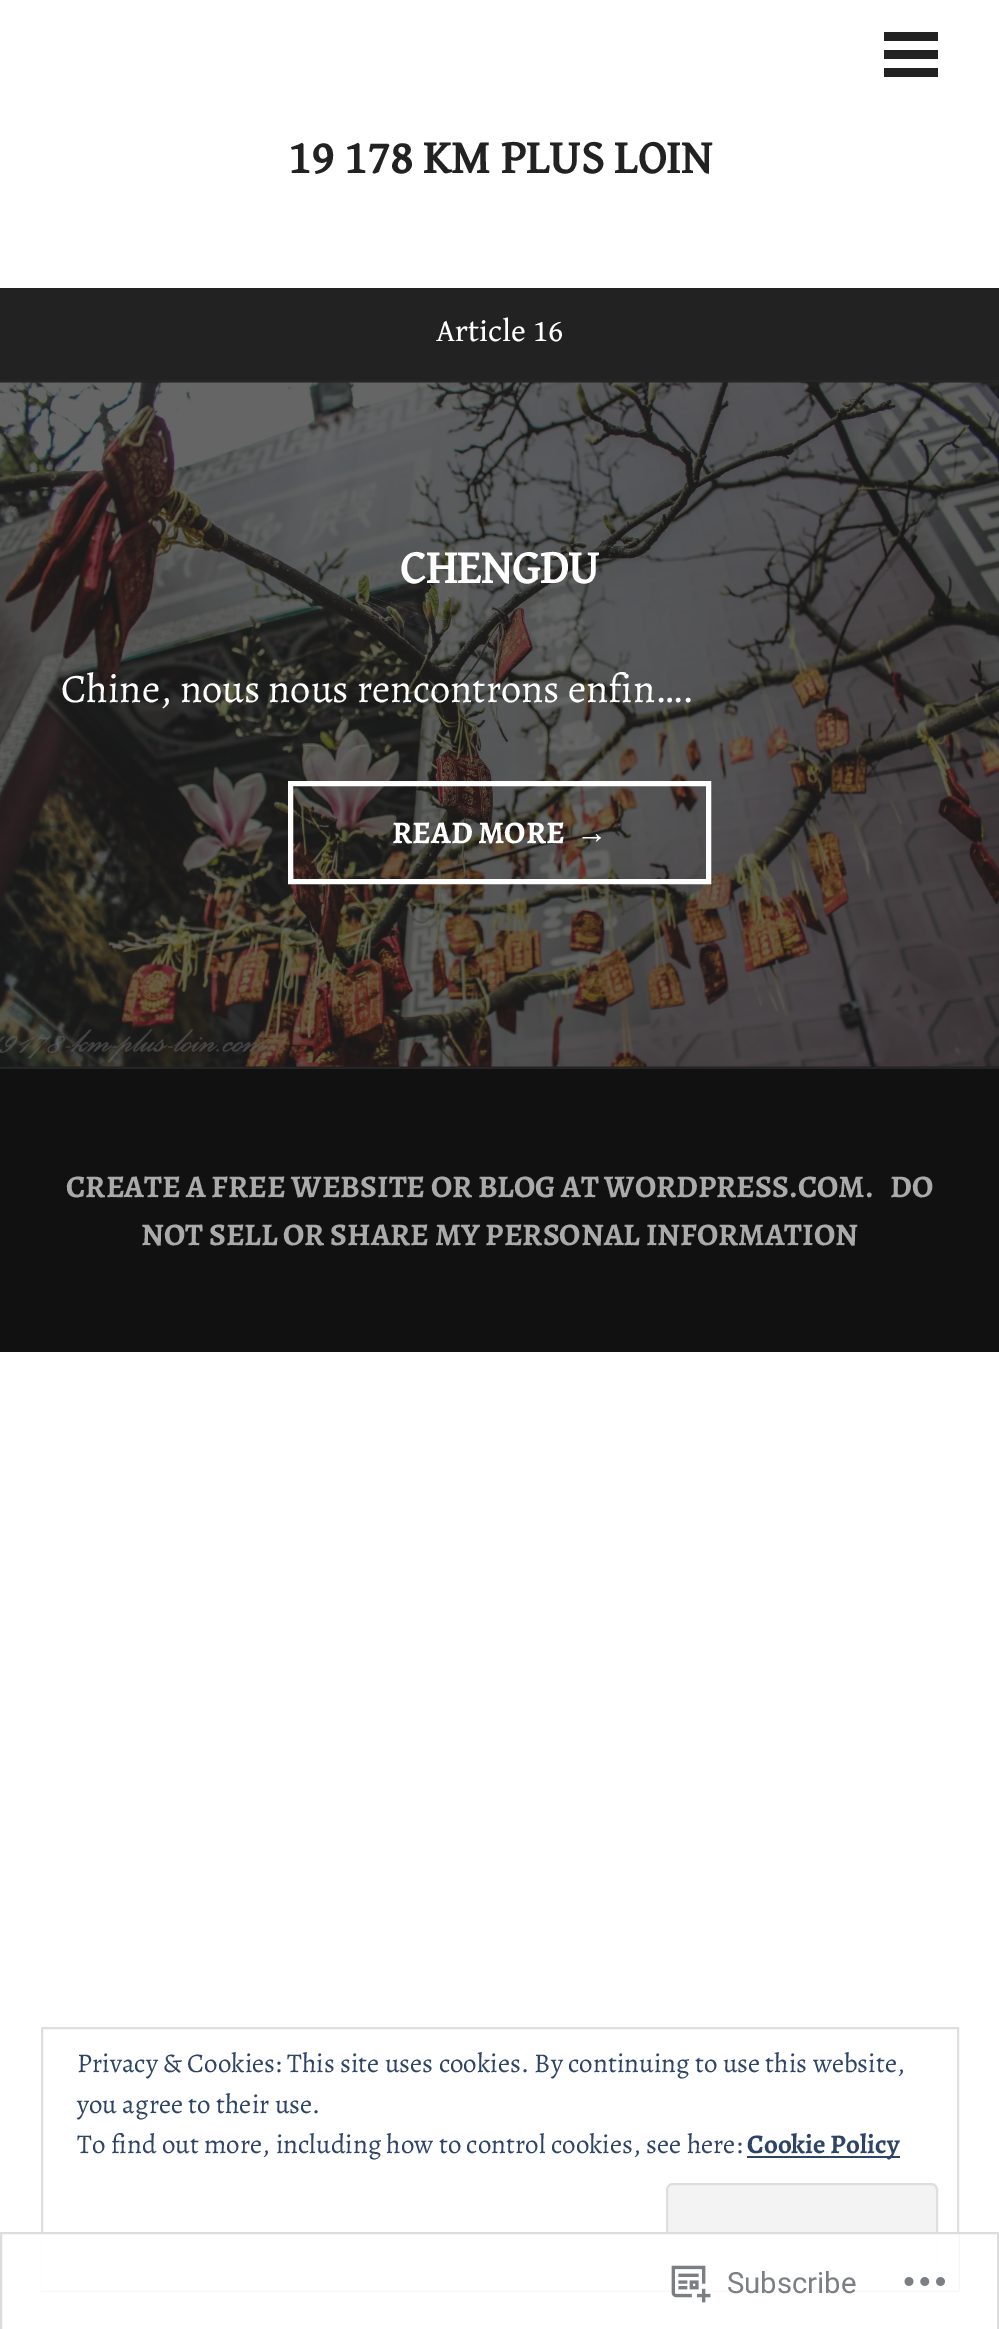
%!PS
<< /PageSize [999 2329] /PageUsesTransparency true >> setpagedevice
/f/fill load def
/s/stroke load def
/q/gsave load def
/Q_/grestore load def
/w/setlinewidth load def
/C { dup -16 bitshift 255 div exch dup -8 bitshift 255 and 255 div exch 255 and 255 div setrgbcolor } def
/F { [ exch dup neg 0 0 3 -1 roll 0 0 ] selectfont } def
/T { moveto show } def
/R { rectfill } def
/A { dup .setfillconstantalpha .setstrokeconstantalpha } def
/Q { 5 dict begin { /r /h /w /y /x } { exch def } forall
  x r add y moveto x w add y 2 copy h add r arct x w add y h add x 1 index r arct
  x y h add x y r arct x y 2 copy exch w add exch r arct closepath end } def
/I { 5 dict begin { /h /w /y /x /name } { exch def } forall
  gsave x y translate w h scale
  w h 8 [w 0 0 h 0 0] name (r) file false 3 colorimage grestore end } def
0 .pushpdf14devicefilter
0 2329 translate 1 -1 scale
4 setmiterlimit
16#FFFFFF C
0 0 999 2329 R
16#222222 C
884 50 54 9 R
884 32 54 9 R
884 68 54 9 R
/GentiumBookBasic-Bold 47.25 F
(19 178 KM PLUS LOIN) 288 173 T
0 288 999 779 R
16#252525 C
0 380 999 2 R
/GentiumBookBasic-Regular 31.5 F
16#FFFFFF C
(Article 16) 436 341 T
16#252525 C
0 1067 999 2 R
(1.rgb) 0 382 999 685 I
/GentiumBookBasic-Bold 47.25 F
16#FFFFFF C
(CHENGDU) 400 583 T
/Alegreya-Regular 40.5 F
(Chine, nous nous rencontrons enfin….) 61 702 T
5 w
290.5 783.5 418 98 rectstroke
/Alegreya-Bold 31.5 F
(READ MORE) 392 843 T
/LiberationSerif-Bold 31.5 F
(→) 576 843 T
16#111111 C
0 1069 999 283 R
/Alegreya-Bold 31.5 F
16#AAAAAA C
(CREATE A FREE WEBSITE OR BLOG AT WORDPRESS.COM.) 66 1197 T
(DO) 890 1197 T
(NOT SELL OR SHARE MY PERSONAL INFORMATION) 141 1245 T
16#DEDEDE C
2 w
42 2028 916 262 rectstroke
/Alegreya-Regular 27 F
16#2E4467 C
(Privacy & Cookies: This site uses cookies. By continuing to use this website,) 77 2072 T
(you agree to their use.) 77 2113 T
(To find out more, including how to control cookies, see here:) 77 2153 T
747 2156 153 2 R
/Alegreya-Bold 27 F
(Cookie Policy) 747 2153 T
16#F3F3F3 C
667 2184 270 85 6 Q q f Q_
16#DEDEDE C
s
0.98 A
16#FFFFFF C
41 2232 918 59 R
16#DCDCDE C
1 2233 997 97 rectstroke
1 A
(2.rgb) 671 2265 40 38 I
/Roboto-Regular 29.25 F
16#7B7F84 C
(Subscribe) 727 2293 T
(3.rgb) 904 2277 41 9 I
.poppdf14devicefilter showpage
